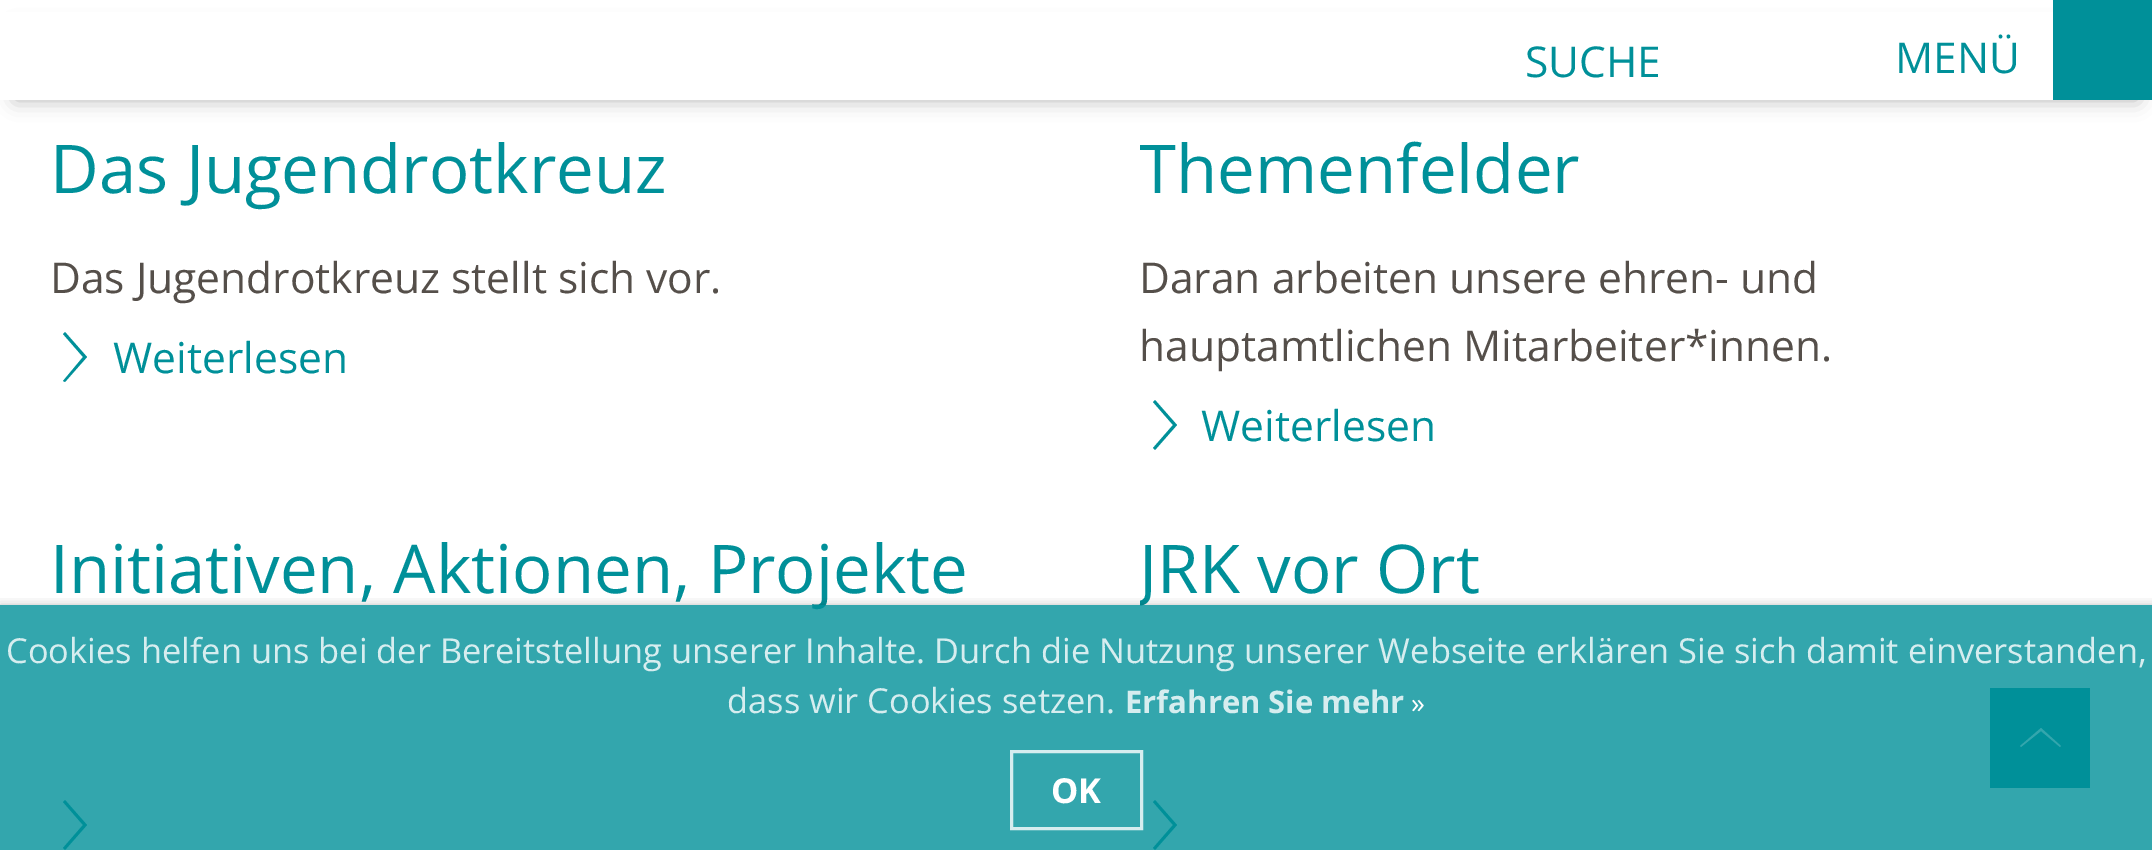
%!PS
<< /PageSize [2152 850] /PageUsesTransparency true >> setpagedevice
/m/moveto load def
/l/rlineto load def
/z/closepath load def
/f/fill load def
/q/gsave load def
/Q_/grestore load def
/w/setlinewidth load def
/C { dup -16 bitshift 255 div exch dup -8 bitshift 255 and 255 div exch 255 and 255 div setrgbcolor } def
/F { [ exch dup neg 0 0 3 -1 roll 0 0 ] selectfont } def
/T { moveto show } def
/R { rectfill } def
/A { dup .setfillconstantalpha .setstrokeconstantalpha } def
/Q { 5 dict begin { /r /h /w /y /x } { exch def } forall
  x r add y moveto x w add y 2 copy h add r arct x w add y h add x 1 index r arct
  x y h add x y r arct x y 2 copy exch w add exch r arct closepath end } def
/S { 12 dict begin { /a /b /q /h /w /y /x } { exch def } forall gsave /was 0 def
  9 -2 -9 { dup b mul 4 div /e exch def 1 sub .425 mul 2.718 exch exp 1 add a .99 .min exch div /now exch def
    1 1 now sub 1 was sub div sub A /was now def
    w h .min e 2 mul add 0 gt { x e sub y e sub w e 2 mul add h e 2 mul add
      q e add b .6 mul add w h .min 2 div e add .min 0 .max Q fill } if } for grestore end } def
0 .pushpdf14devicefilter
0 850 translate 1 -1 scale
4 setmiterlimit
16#FFFFFF C
0 0 2152 850 R
16#B4B4B4 C
15 30 2123 70 0 10 1 S
16#FFFFFF C
0 12 2053 88 R
/OpenSans-Regular 42.5 F
16#009099 C
(SUCHE) 1525 77 T
(MENÜ) 1895 73 T
2053 0 99 100 R
/OpenSans-Regular 67.2 F
(Das Jugendrotkreuz) 50 193 T
/OpenSans-Regular 42.5 F
16#554F4A C
(Das Jugendrotkreuz stellt sich vor.) 50 293 T
16#009099 C
65 382 m -2 -1 l 20 -24 l -20 -23 l 2 -2 l 22 25 l z f
(Weiterlesen) 113 373 T
q
1140 125 963 333 rectclip
/OpenSans-Regular 67.2 F
(Themenfelder) 1139 193 T
Q_
16#554F4A C
(Daran arbeiten unsere ehren- und) 1139 293 T
(hauptamtlichen Mitarbeiter*innen.) 1139 361 T
16#009099 C
1155 450 m -2 -2 l 20 -23 l -20 -23 l 2 -2 l 22 25 l z f
(Weiterlesen) 1201 441 T
/OpenSans-Regular 67.2 F
(Initiativen, Aktionen, Projekte) 50 593 T
65 850 m -2 -2 l 20 -23 l -20 -23 l 2 -2 l 22 25 l z f
q
1140 525 963 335 rectclip
(JRK vor Ort) 1139 593 T
Q_
1155 850 m -2 -2 l 20 -23 l -20 -23 l 2 -2 l 22 25 l z f
1990 688 100 100 R
16#FFFFFF C
2061 746 m -1 1 l -19 -16 l -20 16 l -1 -1 l 21 -18 l z f
q
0 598 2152 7 rectclip
16#1F1F1F C
0 608 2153 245 0 6 .48 S
Q_
0.8 A
16#009099 C
0 605 2152 245 R
/OpenSans-Regular 34.42 F
1 A
16#D6EDEF C
(Cookies helfen uns bei der Bereitstellung unserer Inhalte. Durch die Nutzung unserer Webseite erklären Sie sich damit einverstanden,) 6 663 T
(dass wir Cookies setzen.) 727 713 T
/OpenSans-Bold 31 F
(Erfahren Sie mehr) 1125 713 T
/OpenSans-Regular 28 F
16#FFFFFF C
(») 1411 713 T
0.8 A
3 w
1011.5 751.5 130 77 rectstroke
/OpenSans-Bold 34.42 F
1 A
(OK) 1051 803 T
.poppdf14devicefilter showpage
